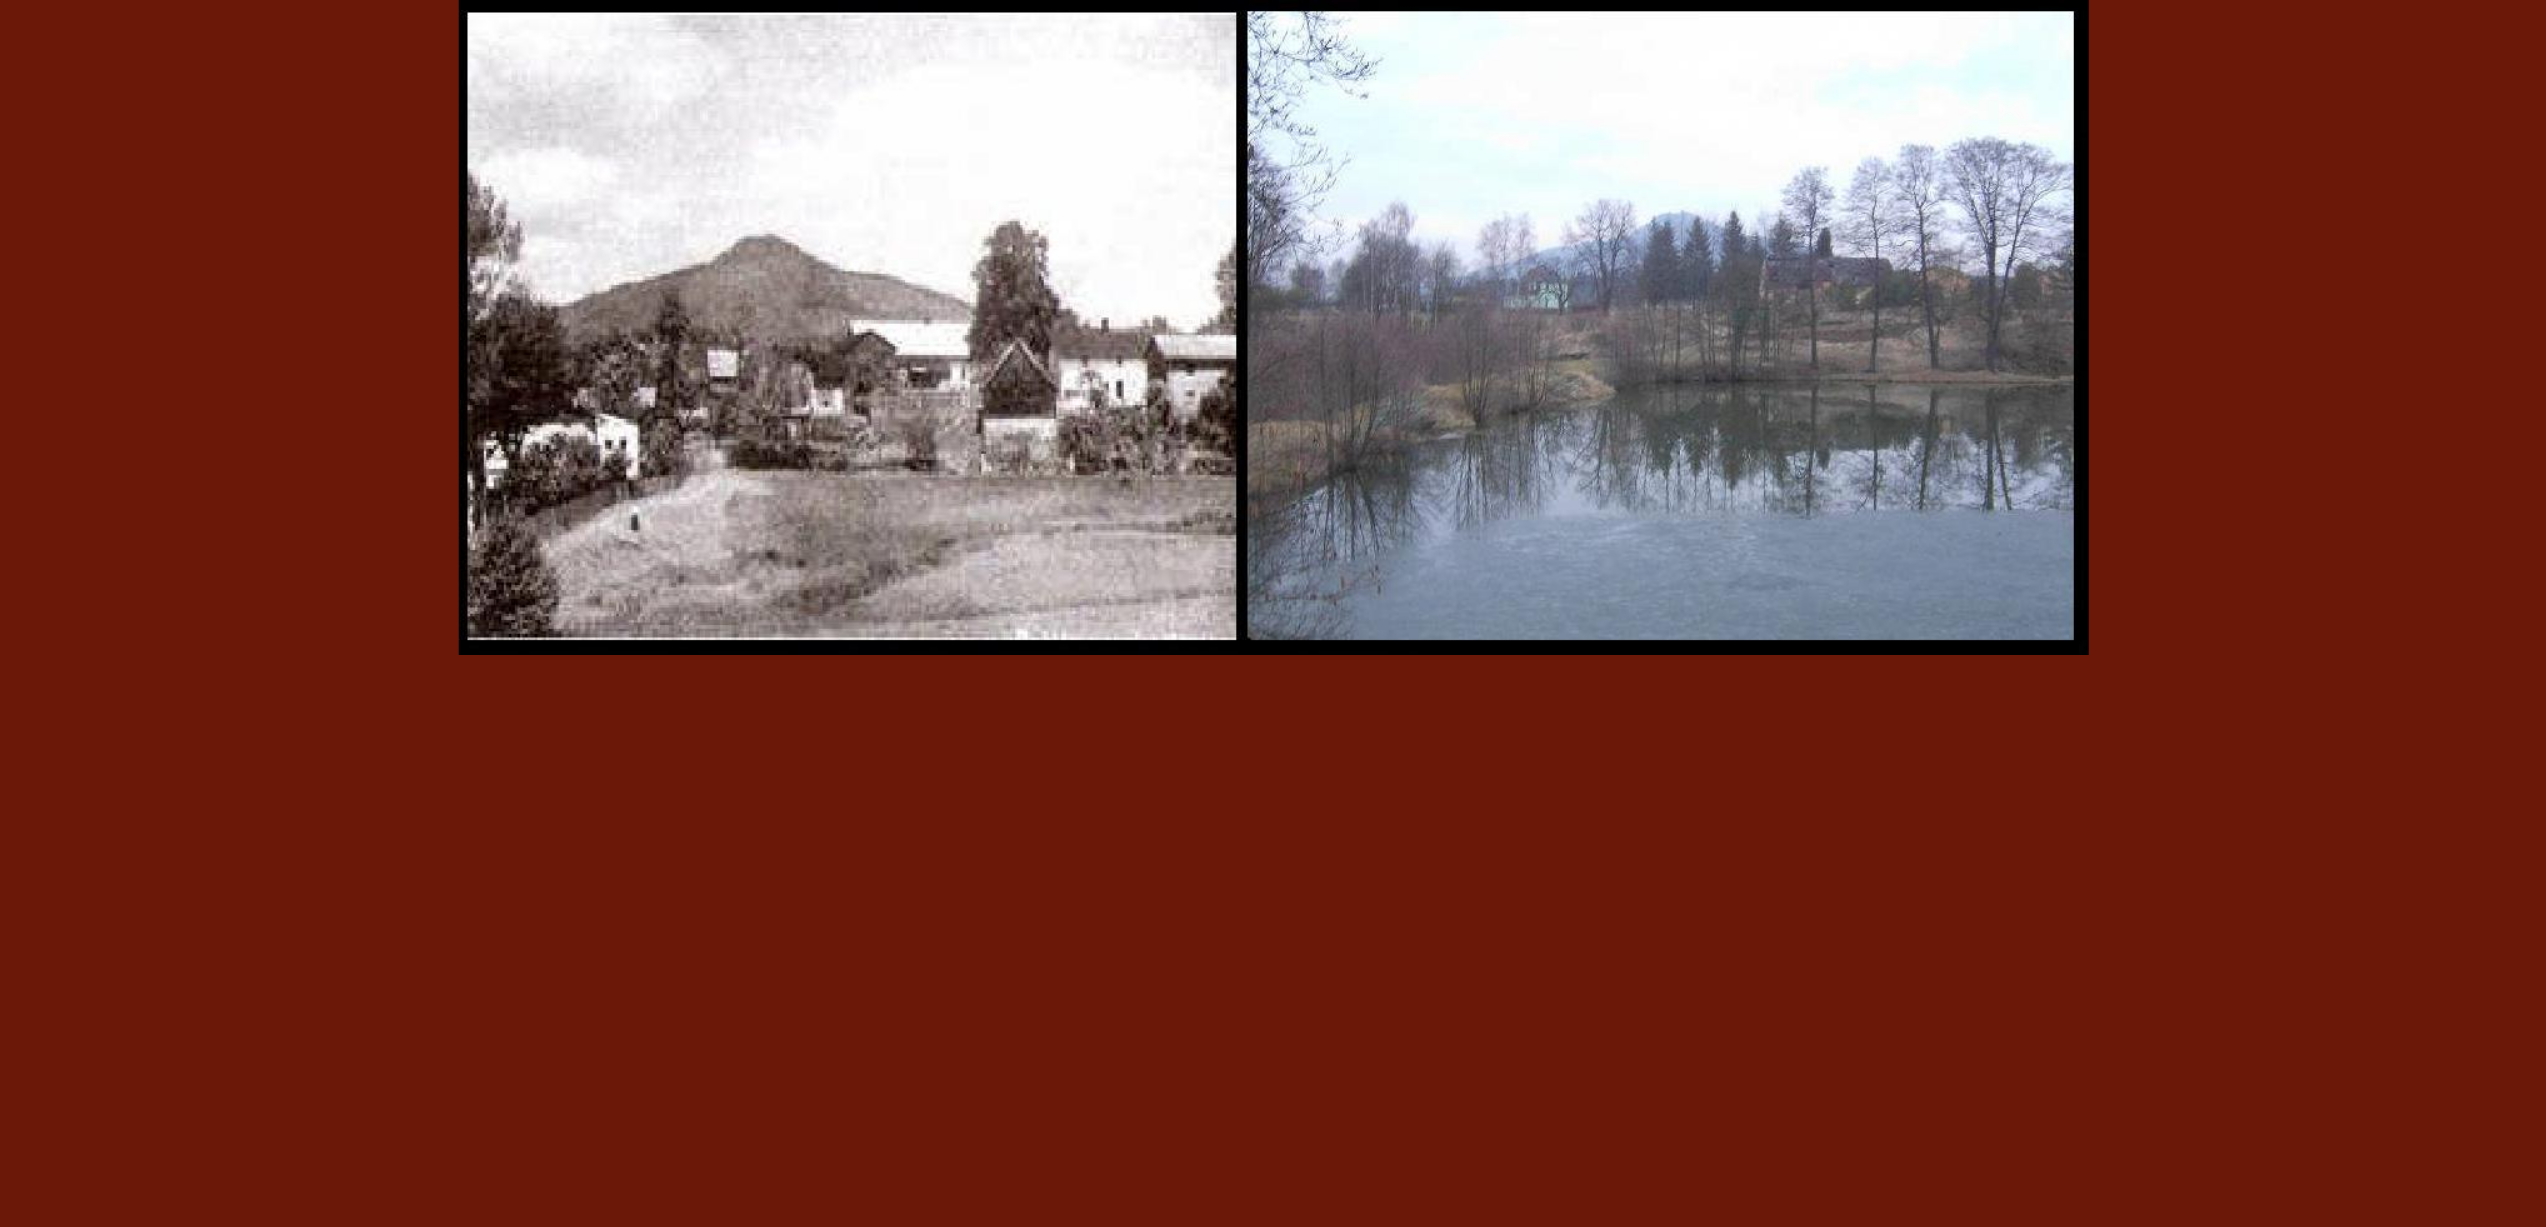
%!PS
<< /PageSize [2546 1227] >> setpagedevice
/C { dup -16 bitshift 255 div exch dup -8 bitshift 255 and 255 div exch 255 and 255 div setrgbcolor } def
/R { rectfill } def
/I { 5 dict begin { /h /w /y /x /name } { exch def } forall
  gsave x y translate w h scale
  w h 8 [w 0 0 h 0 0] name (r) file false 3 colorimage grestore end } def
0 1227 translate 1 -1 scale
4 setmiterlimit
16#6C1808 C
0 0 2546 1227 R
(1.rgb) 458 0 1631 655 I
showpage
